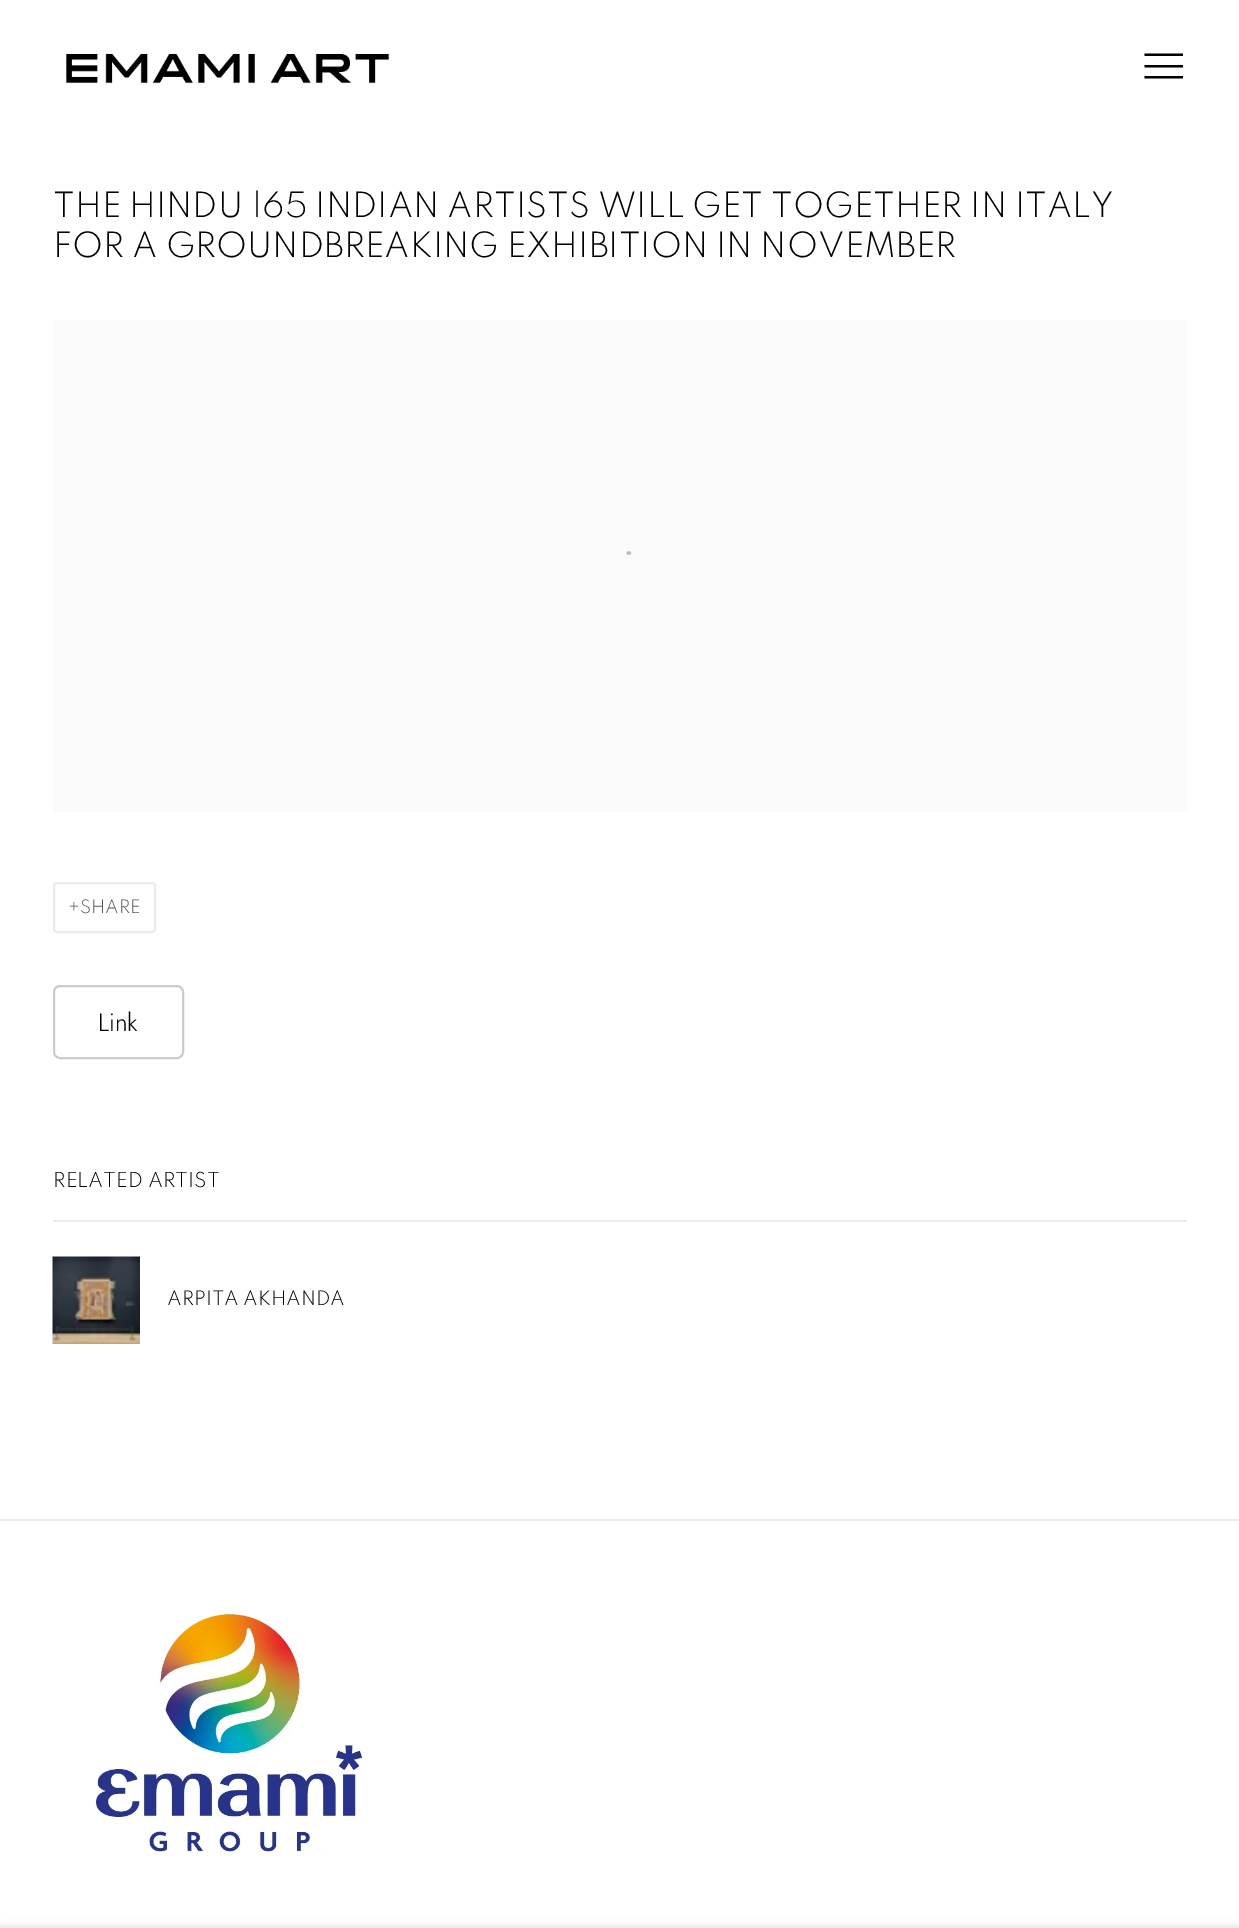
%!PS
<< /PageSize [1239 1928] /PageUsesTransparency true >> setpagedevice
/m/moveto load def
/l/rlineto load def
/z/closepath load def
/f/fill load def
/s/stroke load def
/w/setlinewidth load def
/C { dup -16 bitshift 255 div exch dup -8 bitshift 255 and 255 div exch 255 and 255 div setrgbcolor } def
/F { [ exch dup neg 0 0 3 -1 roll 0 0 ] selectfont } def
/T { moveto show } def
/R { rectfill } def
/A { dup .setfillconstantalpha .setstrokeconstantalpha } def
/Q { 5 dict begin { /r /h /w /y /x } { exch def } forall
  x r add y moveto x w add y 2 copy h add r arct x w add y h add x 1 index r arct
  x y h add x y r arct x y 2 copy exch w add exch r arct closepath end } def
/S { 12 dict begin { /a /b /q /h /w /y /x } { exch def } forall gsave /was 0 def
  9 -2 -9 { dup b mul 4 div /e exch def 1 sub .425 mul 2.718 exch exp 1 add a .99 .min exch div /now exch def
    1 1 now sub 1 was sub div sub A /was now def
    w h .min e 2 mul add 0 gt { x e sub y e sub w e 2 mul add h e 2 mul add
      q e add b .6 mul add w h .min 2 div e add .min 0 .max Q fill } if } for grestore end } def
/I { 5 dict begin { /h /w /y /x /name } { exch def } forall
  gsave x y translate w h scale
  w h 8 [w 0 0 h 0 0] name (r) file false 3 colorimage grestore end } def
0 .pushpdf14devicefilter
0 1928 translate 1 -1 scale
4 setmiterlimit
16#FFFFFF C
0 0 1239 1928 R
(1.rgb) 66 53 324 31 I
16#010101 C
1144.5 78.5 m 0 -2.5 l 38.5 0 l 0 2.5 l z 1144.5 67.5 m 0 -2.5 l 38.5 0 l 0 2.5 l z 1144.5 56 m 0 -2.5 l 38.5 0 l 0 2.5 l z f
/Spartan-Light 35.8 F
(THE HINDU |65 INDIAN ARTISTS WILL GET TOGETHER IN ITALY) 53 217 T
(FOR A GROUNDBREAKING EXHIBITION IN NOVEMBER) 53 257 T
16#FAFAFA C
53 320 1134 492 R
16#BBBBBB C
3.2 w
1 setlinecap
628 553 m 1.5 0 l s
16#EBEBEB C
2 w
0 setlinecap
54 883 101 49 3 Q s
/Spartan-Light 19 F
16#585858 C
(+SHARE) 68 913 T
16#CCCCCC C
54 986 129 72 6 Q s
/Jost-Light 25 F
16#010101 C
(Link) 98 1031 T
16#EBEBEB C
53 1220 1134 2 R
/Spartan-Light 21.25 F
16#010101 C
(RELATED ARTIST) 53 1187 T
(2.rgb) 52 1256 88 88 I
/Spartan-Light 20.5 F
(ARPITA AKHANDA) 167 1305 T
16#EBEBEB C
0 1519 1239 2 R
(3.rgb) 94 1613 270 240 I
16#000000 C
0 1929 1239 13 0 4.5 .23 S
.poppdf14devicefilter showpage
